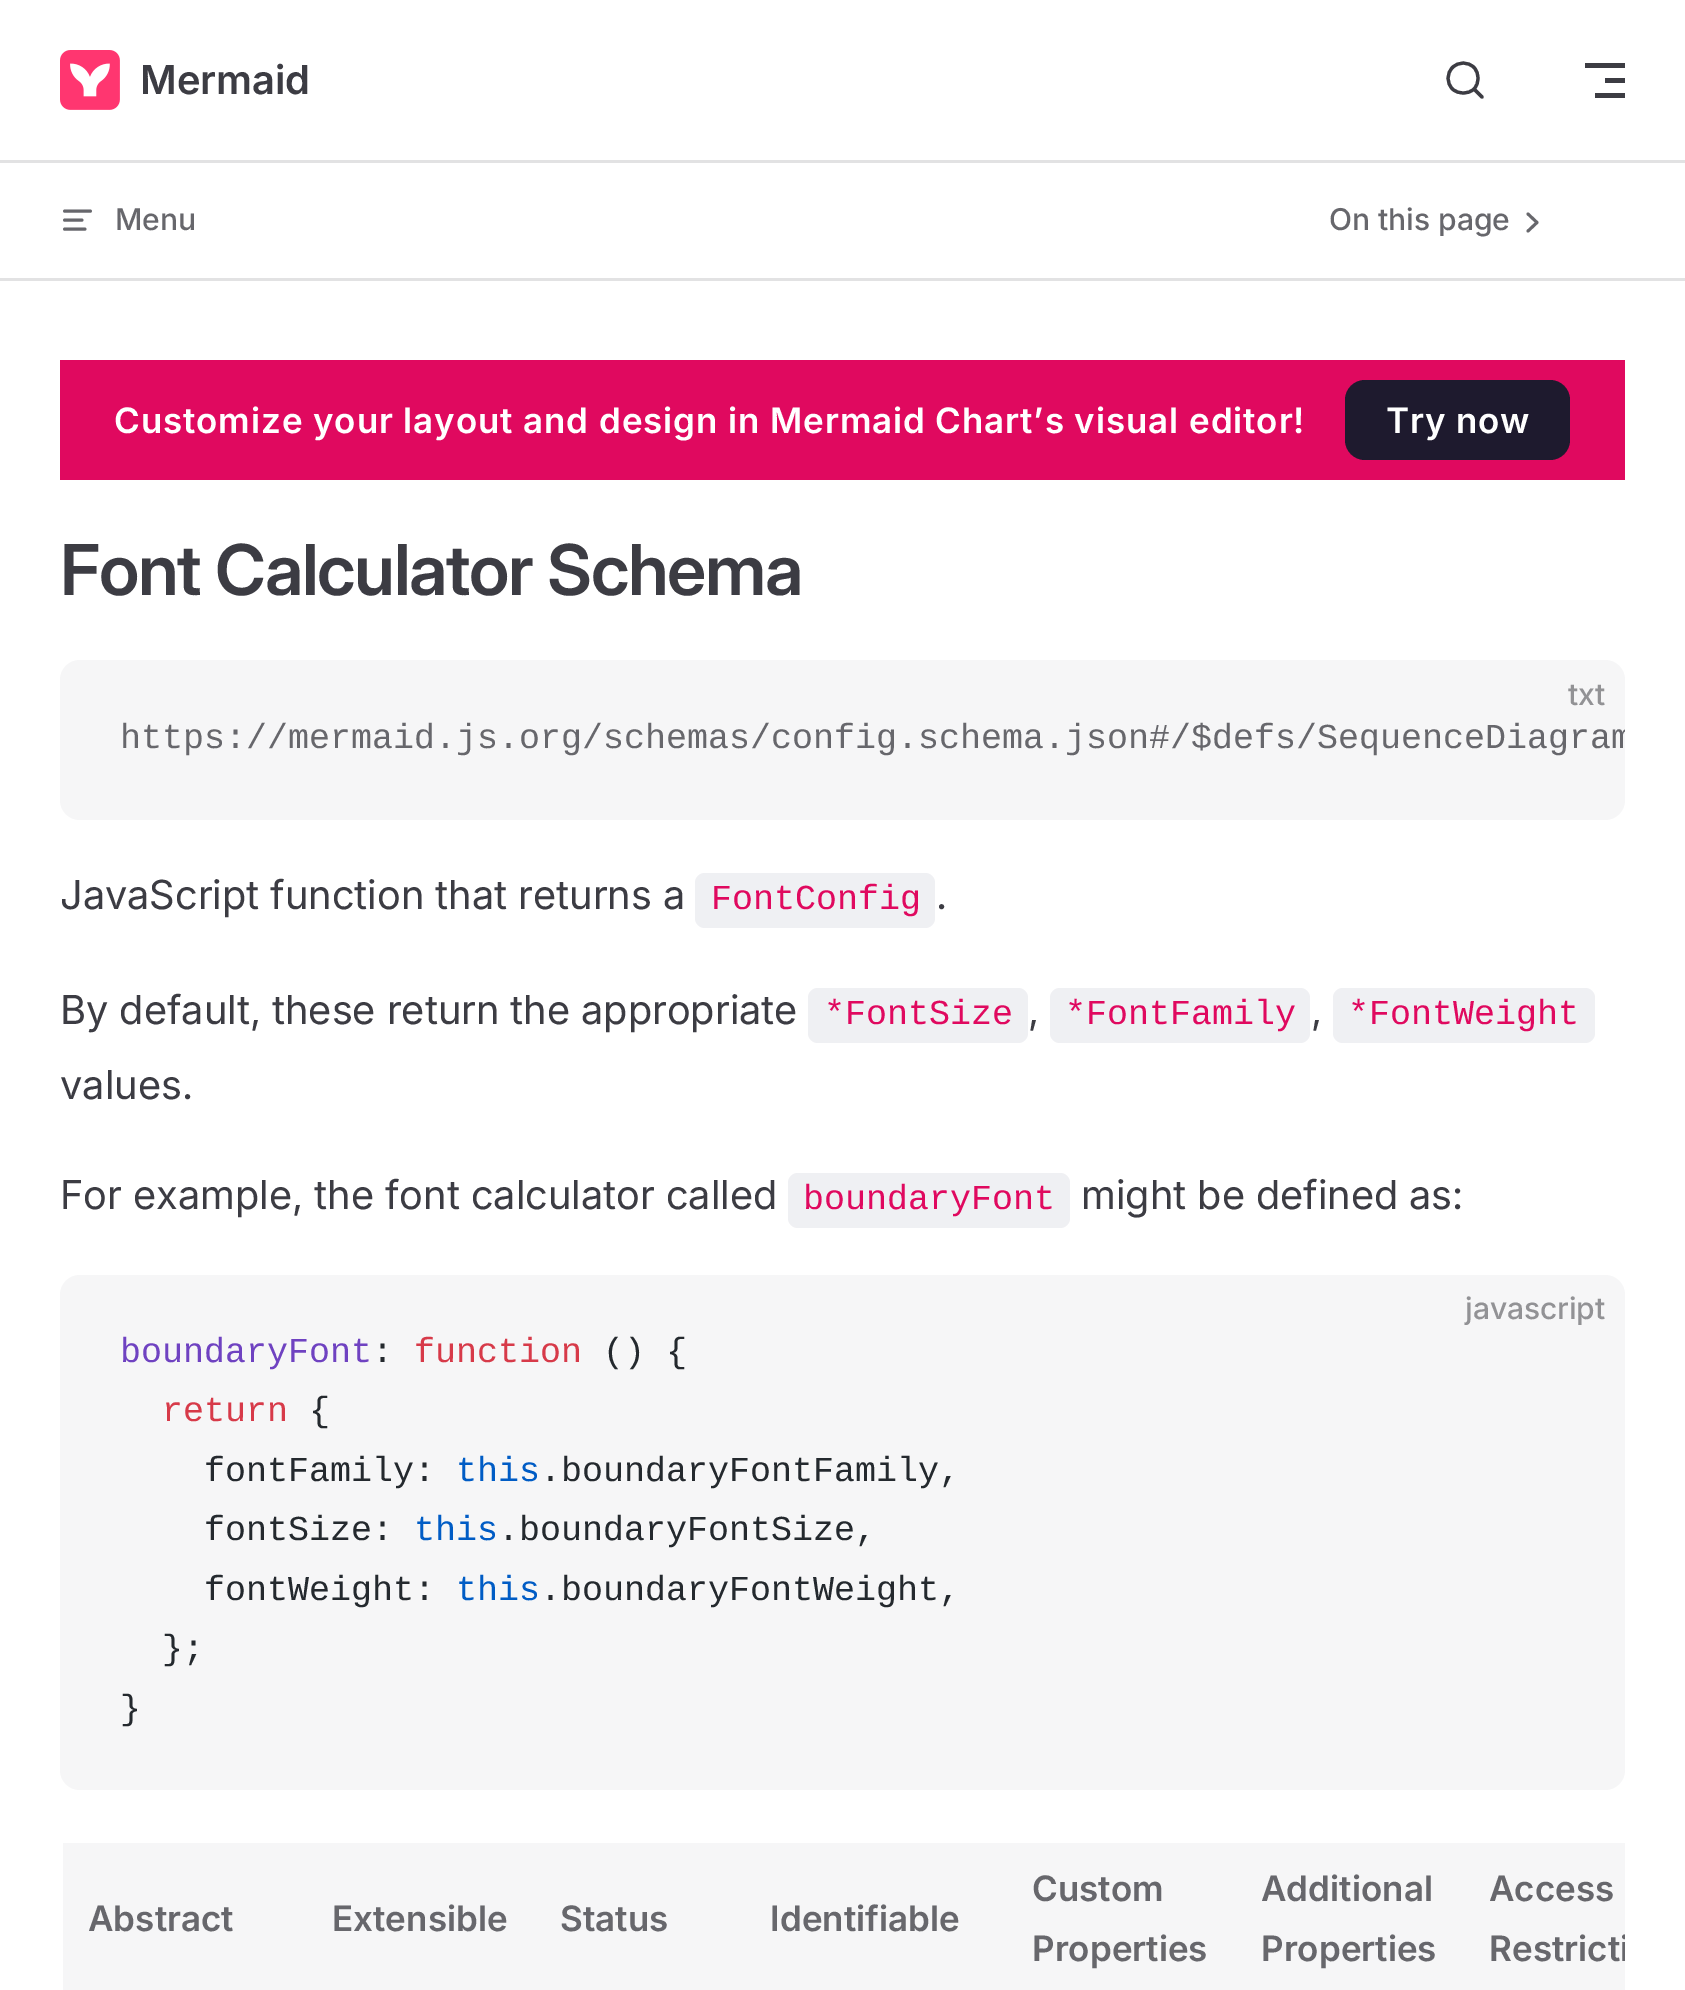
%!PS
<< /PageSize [1685 1990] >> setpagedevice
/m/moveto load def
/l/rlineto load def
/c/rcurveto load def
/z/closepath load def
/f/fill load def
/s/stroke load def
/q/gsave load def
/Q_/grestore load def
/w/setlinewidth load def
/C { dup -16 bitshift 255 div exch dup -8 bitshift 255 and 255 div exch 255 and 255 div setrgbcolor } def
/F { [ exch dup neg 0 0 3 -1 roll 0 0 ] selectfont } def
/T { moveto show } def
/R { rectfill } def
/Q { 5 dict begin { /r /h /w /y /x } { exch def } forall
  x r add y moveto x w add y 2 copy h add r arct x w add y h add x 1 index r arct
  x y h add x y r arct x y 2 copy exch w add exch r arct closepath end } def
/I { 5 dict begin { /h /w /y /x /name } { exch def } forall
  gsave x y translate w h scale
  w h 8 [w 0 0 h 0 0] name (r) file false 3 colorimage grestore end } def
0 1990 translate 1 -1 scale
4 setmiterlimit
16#FFFFFF C
0 0 1685 1990 R
(1.rgb) 60 50 60 60 I
/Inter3-SemiBold 40 F
16#3C3C43 C
(Mermaid) 140 94 T
3.2 w
1 setlinecap
1 setlinejoin
1474 89 m 8 8 l -8 -8 l -6 5.5 -15.5 5.5 -21.5 0 c -6 -6 -6 -15.5 0 -21.5 c 6 -6 15.5 -6 21.5 0 c 5.5 6 5.5 15.5 0 21.5 c z s
1585 63 40 5 R
1605 78 20 5 R
1595 93 30 5 R
16#E2E2E3 C
0 160 1685 3 R
0 278 1685 3 R
16#67676C C
2.9 w
90.5 211 m -26 0 l 82 220 m -17.5 0 l 85 229 m -20.5 0 l s
/Inter-Medium 30 F
(Menu) 115 230 T
(On this page) 1329 230 T
1528 231 m 9 -8.5 l -9 -8.5 l s
16#E0095F C
60 360 1565 120 R
/Inter-SemiBold 35 F
16#FFFFFF C
114 433 m .88 0 (Customize your layout and design in Mermaid Chart’s visual editor!) ashow
16#1E1A2E C
1345 380 225 80 20 Q f
16#FFFFFF C
1386 433 m .88 0 (Try now) ashow
/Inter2-SemiBold 70 F
16#3C3C43 C
60 595 m -1.4 0 (Font Calculator Schema) ashow
16#F6F6F7 C
60 660 1565 160 20 Q f
/Inter-Medium 30 F
16#929295 C
(txt) 1568 705 T
q
60 660 1565 160 rectclip
/LiberationMono-Regular 35 F
16#67676C C
(https://mermaid.js.org/schemas/config.schema.json#/$defs/SequenceDiagram) 120 748 T
Q_
/Inter-Regular 40 F
16#3C3C43 C
(JavaScript function that returns a) 60 909 T
16#EFF0F3 C
695 873 240 55 10 Q f
/LiberationMono-Regular 35 F
16#E0095F C
(FontConfig) 711 909 T
/Inter-Regular 40 F
16#3C3C43 C
(.) 936 909 T
(By default, these return the appropriate) 60 1024 T
16#EFF0F3 C
808 988 220 55 10 Q f
/LiberationMono-Regular 35 F
16#E0095F C
(*FontSize) 824 1024 T
/Inter-Regular 40 F
16#3C3C43 C
(,) 1028 1024 T
16#EFF0F3 C
1050 988 260 55 10 Q f
/LiberationMono-Regular 35 F
16#E0095F C
(*FontFamily) 1065 1024 T
/Inter-Regular 40 F
16#3C3C43 C
(,) 1311 1024 T
16#EFF0F3 C
1333 988 262 55 10 Q f
/LiberationMono-Regular 35 F
16#E0095F C
(*FontWeight) 1348 1024 T
/Inter-Regular 40 F
16#3C3C43 C
(values.) 60 1099 T
(For example, the font calculator called) 60 1209 T
16#EFF0F3 C
788 1173 282 55 10 Q f
/LiberationMono-Regular 35 F
16#E0095F C
(boundaryFont) 803 1209 T
/Inter-Regular 40 F
16#3C3C43 C
(might be defined as:) 1081 1209 T
16#F6F6F7 C
60 1275 1565 515 20 Q f
/Inter-Medium 30 F
16#929295 C
(javascript) 1465 1319 T
/LiberationMono-Regular 35 F
16#6F42C1 C
(boundaryFont) 120 1362 T
16#24292E C
(:) 372 1362 T
16#D73A49 C
(function) 414 1362 T
16#24292E C
(\(\) {) 603 1362 T
16#D73A49 C
(return) 162 1421 T
16#24292E C
({) 309 1421 T
(fontFamily:) 204 1481 T
16#005CC5 C
(this) 456 1481 T
16#24292E C
(.boundaryFontFamily,) 540 1481 T
(fontSize:) 204 1540 T
16#005CC5 C
(this) 414 1540 T
16#24292E C
(.boundaryFontSize,) 498 1540 T
(fontWeight:) 204 1600 T
16#005CC5 C
(this) 456 1600 T
16#24292E C
(.boundaryFontWeight,) 540 1600 T
(};) 162 1659 T
(}) 120 1719 T
16#F6F6F7 C
63 1843 1562 147 R
/Inter-SemiBold 35 F
16#67676C C
(Abstract) 88 1931 T
(Extensible) 332 1931 T
(Status) 560 1931 T
(Identifiable) 770 1931 T
(Custom) 1032 1901 T
(Properties) 1032 1961 T
(Additional) 1261 1901 T
(Properties) 1261 1961 T
(Access) 1489 1901 T
q
60 1840 1565 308 rectclip
(Restricti) 1489 1961 T
Q_
showpage
